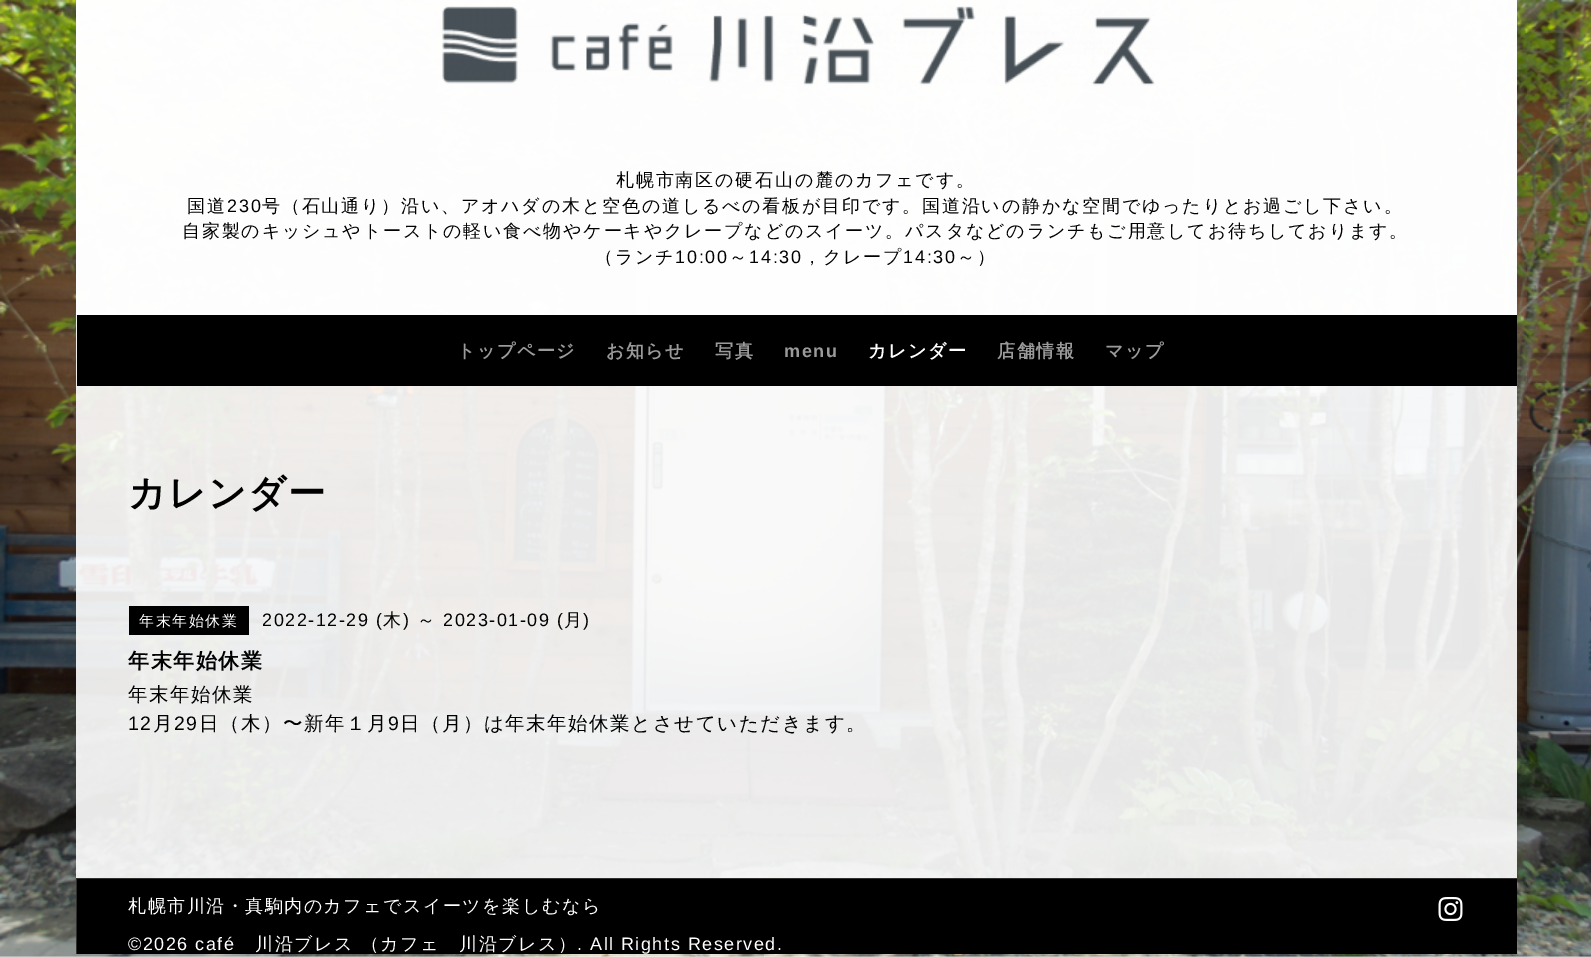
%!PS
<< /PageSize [1591 957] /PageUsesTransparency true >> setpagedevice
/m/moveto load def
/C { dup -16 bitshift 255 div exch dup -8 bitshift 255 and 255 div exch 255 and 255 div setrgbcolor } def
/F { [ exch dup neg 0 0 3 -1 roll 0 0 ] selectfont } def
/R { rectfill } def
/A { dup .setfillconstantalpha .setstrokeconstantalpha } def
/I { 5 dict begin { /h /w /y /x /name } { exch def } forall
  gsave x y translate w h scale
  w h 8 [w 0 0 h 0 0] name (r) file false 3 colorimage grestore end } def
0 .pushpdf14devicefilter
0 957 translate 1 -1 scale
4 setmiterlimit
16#FFFFFF C
0 0 1591 957 R
(1.rgb) 0 0 1591 957 I
0.9 A
76 0 1441 315 R
1 A
(2.rgb) 442 6 713 80 I
/WenQuanYiZenHei-Medium 18 F
16#000000 C
616 186 m 1.8 0 (札幌市南区の硬石山の麓のカフェです。) ashow
187 212 m 1.8 0 (国道) ashow
/LiberationSans-Regular 18 F
227 212 m 1.8 0 (230) ashow
/WenQuanYiZenHei-Medium 18 F
262 212 m 1.8 0 (号（石山通り）沿い、アオハダの木と空色の道しるべの看板が目印です。国道沿いの静かな空間でゆったりとお過ごし下さい。) ashow
182 237 m 1.8 0 (自家製のキッシュやトーストの軽い食べ物やケーキやクレープなどのスイーツ。パスタなどのランチもご用意してお待ちしております。) ashow
595 263 m 1.8 0 (（ランチ) ashow
/LiberationSans-Regular 18 F
675 263 m 1.8 0 (10:00) ashow
/WenQuanYiZenHei-Medium 18 F
729 263 m 1.8 0 (～) ashow
/LiberationSans-Regular 18 F
749 263 m 1.8 0 (14:30) ashow
/WenQuanYiZenHei-Medium 18 F
803 263 m 1.8 0 (，クレープ) ashow
/LiberationSans-Regular 18 F
903 263 m 1.8 0 (14:30) ashow
/WenQuanYiZenHei-Medium 18 F
957 263 m 1.8 0 (～）) ashow
77 315 1440 71 R
/WenQuanYiZenHei-Bold 18 F
16#9A9A9A C
457 357 m 1.5 0 (トップページ) ashow
606 357 m 1.5 0 (お知らせ) ashow
715 357 m 1.5 0 (写真) ashow
/LiberationSans-Bold 18 F
784 357 m 1.5 0 (menu) ashow
/WenQuanYiZenHei-Bold 18 F
16#FFFFFF C
868 357 m 1.5 0 (カレンダー) ashow
16#9A9A9A C
997 357 m 1.5 0 (店舗情報) ashow
1105 357 m 1.5 0 (マップ) ashow
/WenQuanYiZenHei-Bold 37.5 F
16#000000 C
128 506 m 1.5 0 (カレンダー) ashow
129 606 120 29 R
/WenQuanYiZenHei-Medium 15 F
16#FFFFFF C
139 626 m 1.5 0 (年末年始休業) ashow
/LiberationSans-Regular 18 F
16#000000 C
262 626 m 1.5 0 (2022-12-29 \() ashow
/WenQuanYiZenHei-Medium 18 F
383 626 m 1.5 0 (木) ashow
/LiberationSans-Regular 18 F
403 626 m 1.5 0 (\)) ashow
/WenQuanYiZenHei-Medium 18 F
417 626 m 1.5 0 (～) ashow
/LiberationSans-Regular 18 F
443 626 m 1.5 0 (2023-01-09 \() ashow
/WenQuanYiZenHei-Medium 18 F
564 626 m 1.5 0 (月) ashow
/LiberationSans-Regular 18 F
583 626 m 1.5 0 (\)) ashow
/WenQuanYiZenHei-Bold 21 F
128 668 m 1.5 0 (年末年始休業) ashow
/WenQuanYiZenHei-Medium 19.5 F
128 701 m 1.5 0 (年末年始休業) ashow
/LiberationSans-Regular 19.5 F
128 730 m 1.5 0 (12) ashow
/WenQuanYiZenHei-Medium 19.5 F
153 730 m 1.5 0 (月) ashow
/LiberationSans-Regular 19.5 F
174 730 m 1.5 0 (29) ashow
/WenQuanYiZenHei-Medium 19.5 F
199 730 m 1.5 0 (日（木）〜新年１月) ashow
/LiberationSans-Regular 19.5 F
388 730 m 1.5 0 (9) ashow
/WenQuanYiZenHei-Medium 19.5 F
400 730 m 1.5 0 (日（月）は年末年始休業とさせていただきます。) ashow
0.8 A
76 878 1441 76 R
1 A
77 879 1440 75 R
/WenQuanYiZenHei-Medium 18 F
16#FFFFFF C
128 912 m 1.5 0 (札幌市川沿・真駒内のカフェでスイーツを楽しむなら) ashow
/LiberationSans-Regular 18 F
128 950 m 1.5 0 (©2026 café) ashow
/WenQuanYiZenHei-Medium 18 F
255 950 m 1.5 0 (川沿ブレス （カフェ　川沿ブレス）) ashow
/LiberationSans-Regular 18 F
577 950 m 1.5 0 (. All Rights Reserved.) ashow
(3.rgb) 1438 897 25 24 I
.poppdf14devicefilter showpage
